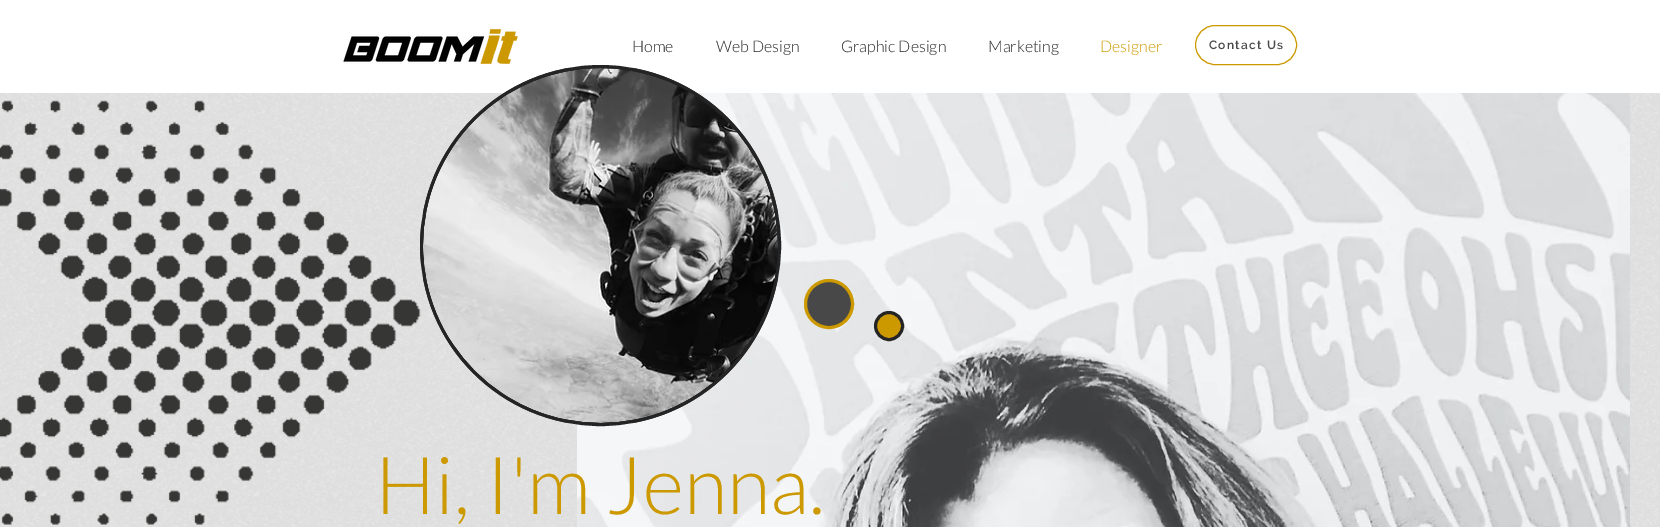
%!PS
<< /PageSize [1660 527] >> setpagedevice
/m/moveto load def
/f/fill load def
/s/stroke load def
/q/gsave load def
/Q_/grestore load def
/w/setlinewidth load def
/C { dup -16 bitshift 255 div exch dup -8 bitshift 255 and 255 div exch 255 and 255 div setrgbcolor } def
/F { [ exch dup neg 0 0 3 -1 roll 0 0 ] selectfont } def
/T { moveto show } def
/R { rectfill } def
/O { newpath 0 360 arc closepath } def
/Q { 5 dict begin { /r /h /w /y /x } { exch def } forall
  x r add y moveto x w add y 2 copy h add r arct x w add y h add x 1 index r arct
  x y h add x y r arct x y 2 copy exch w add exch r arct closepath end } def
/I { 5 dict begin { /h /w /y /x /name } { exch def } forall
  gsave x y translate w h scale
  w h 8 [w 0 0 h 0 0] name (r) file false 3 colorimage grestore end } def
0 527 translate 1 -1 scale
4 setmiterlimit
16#FFFFFF C
0 0 1660 527 R
(1.rgb) 343 28 175 36 I
/Lato-Light 16 F
16#242424 C
(Home) 632 52 T
(Web Design) 716 52 T
(Graphic Design) 841 52 T
(Marketing) 988 52 T
16#CC9900 C
(Designer) 1100 52 T
1195.5 25.5 101 39 19.5 Q s
/Raleway-SemiBold 12 F
16#484848 C
1209 49 m 1.25 0 (Contact Us) ashow
(5.rgb) 0 93 1660 434 I
(4.rgb) 577 93 1053 434 I
16#242424 C
600.5 245.5 179 O q f Q_
3 w
s
(2.rgb) 423 68 355 355 I
/Lato-Light 80 F
16#CC9900 C
(Hi, I'm Jenna.) 375 514 T
(3.rgb) 0 100 421 425 I
16#484848 C
829 304 23.5 O q f Q_
16#CC9900 C
s
889 326 13.5 O q f Q_
16#242424 C
s
showpage
